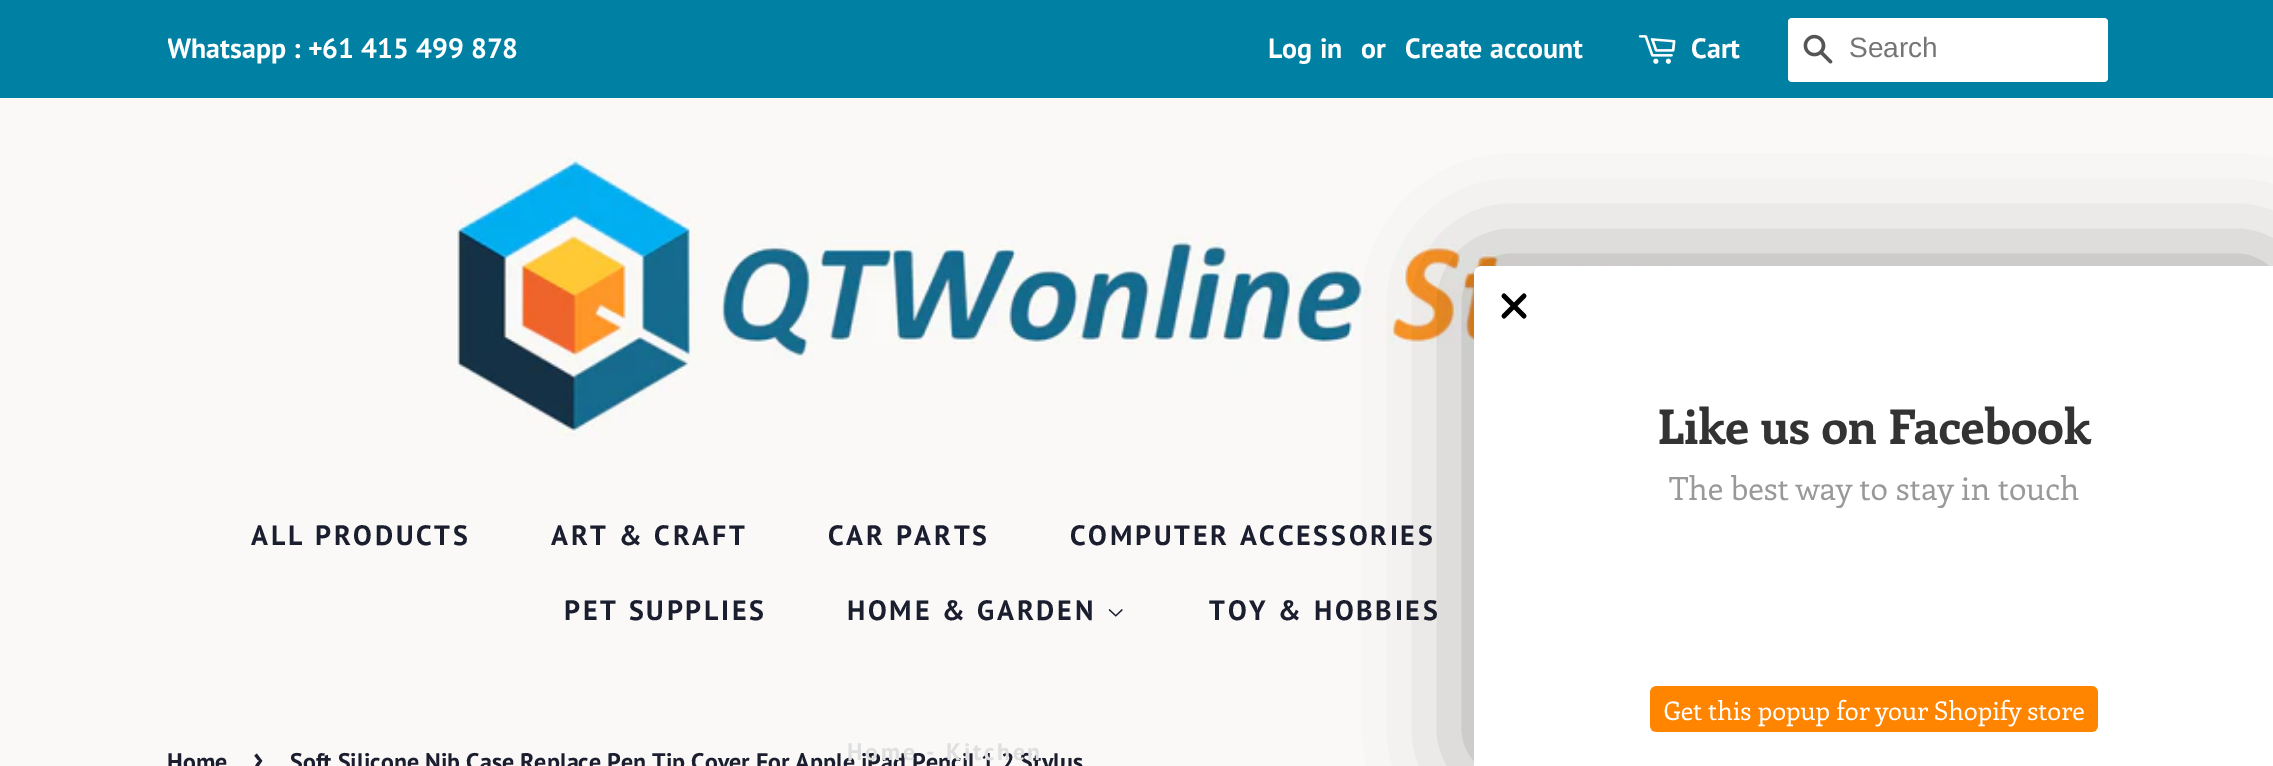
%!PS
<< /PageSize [2273 766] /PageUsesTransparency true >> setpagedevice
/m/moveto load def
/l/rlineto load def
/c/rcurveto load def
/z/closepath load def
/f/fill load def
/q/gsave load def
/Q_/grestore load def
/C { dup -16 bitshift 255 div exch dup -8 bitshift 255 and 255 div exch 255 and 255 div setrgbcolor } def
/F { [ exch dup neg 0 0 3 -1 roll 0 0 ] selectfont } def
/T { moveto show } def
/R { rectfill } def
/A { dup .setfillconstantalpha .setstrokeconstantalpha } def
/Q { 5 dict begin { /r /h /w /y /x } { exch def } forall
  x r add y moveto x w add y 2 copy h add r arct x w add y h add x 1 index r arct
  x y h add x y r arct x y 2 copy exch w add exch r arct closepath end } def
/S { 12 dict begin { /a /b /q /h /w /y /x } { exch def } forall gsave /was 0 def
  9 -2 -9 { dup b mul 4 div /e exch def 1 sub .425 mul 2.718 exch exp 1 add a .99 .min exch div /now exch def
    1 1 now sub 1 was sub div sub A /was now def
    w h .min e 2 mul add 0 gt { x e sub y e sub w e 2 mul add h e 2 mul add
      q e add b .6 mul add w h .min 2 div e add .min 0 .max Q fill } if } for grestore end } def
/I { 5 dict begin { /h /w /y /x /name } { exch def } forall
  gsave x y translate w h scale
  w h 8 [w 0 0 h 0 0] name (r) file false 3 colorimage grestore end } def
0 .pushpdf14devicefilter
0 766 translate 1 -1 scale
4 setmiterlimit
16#FAF9F7 C
0 0 2273 766 R
16#0081A3 C
0 0 2273 98 R
q
168 26 350 48 rectclip
/PTSans-Bold 28 F
16#FFFFFF C
(Whatsapp : +61 415 499 878) 167 58 T
Q_
/PTSans-Bold 28 F
16#FFFFFF C
(Log in) 1268 58 T
(or) 1361 58 T
(Create account) 1405 58 T
(1.rgb) 1638 35 38 29 I
(Cart) 1691 58 T
1788 18 320 64 4 Q f
(2.rgb) 1803 34 30 30 I
/LiberationSans-Regular 28 F
16#757575 C
(Search) 1849 57 T
(3.rgb) 456 158 1251 278 I
/PTSans-Bold 28 F
16#1B1E2F C
251 545 m 2.75 0 (ALL PRODUCTS) ashow
551 545 m 2.75 0 (ART & CRAFT) ashow
828 545 m 2.75 0 (CAR PARTS) ashow
1070 545 m 2.75 0 (COMPUTER ACCESSORIES) ashow
564 620 m 2.75 0 (PET SUPPLIES) ashow
847 620 m 2.75 0 (HOME & GARDEN) ashow
(4.rgb) 1108 609 15 8 I
/PTSans-Bold 24 F
(Soft Silicone Nib Case Replace Pen Tip Cover For Apple iPad Pencil 1 2 Stylus) 290 770 T
/PTSans-Bold 23.75 F
16#E0DFE0 C
847 760 m 2.75 0 (Home - Kitchen) ashow
/PTSans-Bold 28 F
16#1B1E2F C
1209 620 m 2.75 0 (TOY & HOBBIES) ashow
/PTSans-Bold 24 F
(Home) 167 770 T
/PTSans-Bold 34 F
(›) 253 770 T
16#000000 C
1474 266 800 500 8 50 .35 S
16#FFFFFF C
1482 266 m 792 0 l 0 500 l -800 0 l 0 -492 l 0 -4.5 3.5 -8 8 -8 c z f
(5.rgb) 1501 293 597 439 I
.poppdf14devicefilter showpage
